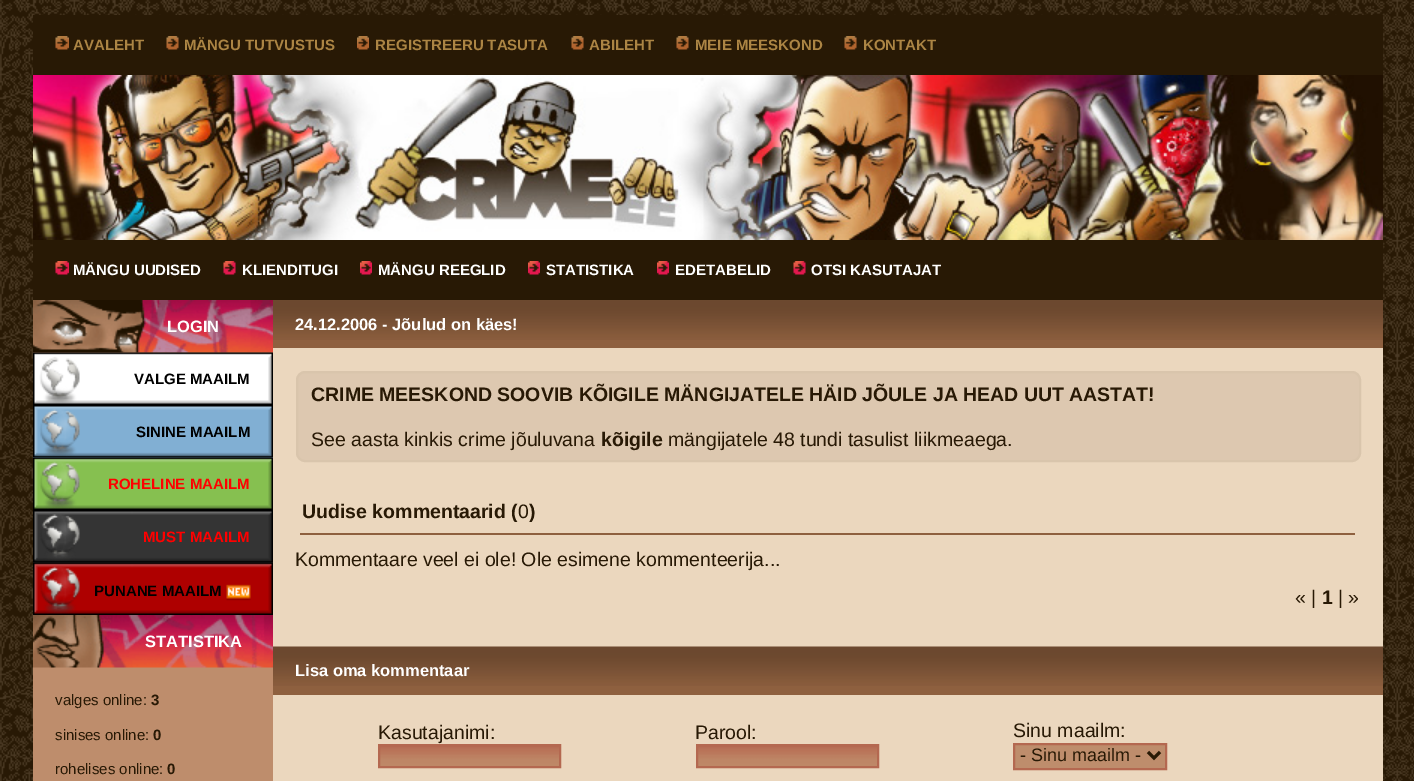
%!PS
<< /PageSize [1414 781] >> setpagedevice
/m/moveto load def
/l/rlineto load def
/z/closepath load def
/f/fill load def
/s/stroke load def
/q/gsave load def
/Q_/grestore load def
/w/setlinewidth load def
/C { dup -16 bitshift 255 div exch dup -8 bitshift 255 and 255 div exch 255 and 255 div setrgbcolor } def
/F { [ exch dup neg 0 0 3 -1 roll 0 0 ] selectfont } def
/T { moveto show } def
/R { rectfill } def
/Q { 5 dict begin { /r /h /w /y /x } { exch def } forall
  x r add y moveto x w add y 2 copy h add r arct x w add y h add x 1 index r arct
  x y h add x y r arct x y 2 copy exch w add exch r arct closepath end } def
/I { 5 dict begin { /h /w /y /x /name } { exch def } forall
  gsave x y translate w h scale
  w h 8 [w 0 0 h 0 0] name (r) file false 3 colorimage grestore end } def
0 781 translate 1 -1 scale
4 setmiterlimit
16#FFFFFF C
0 0 1414 781 R
(1.rgb) 0 0 1414 781 I
16#BE8D6C C
33 352 240 429 R
16#281905 C
33 15 1350 60 R
(2.rgb) 55 36 14 14 I
/LiberationSans-Bold 15 F
16#AC8544 C
(AVALEHT) 73 50 T
(3.rgb) 166 36 13 14 I
(MÄNGU TUTVUSTUS) 184 50 T
(4.rgb) 357 36 12 14 I
(REGISTREERU TASUTA) 375 50 T
(5.rgb) 571 36 13 14 I
(ABILEHT) 589 50 T
(5.rgb) 676 36 13 14 I
(MEIE MEESKOND) 695 50 T
(3.rgb) 844 36 13 14 I
(KONTAKT) 863 50 T
(6.rgb) 33 75 1350 165 I
16#281905 C
33 240 1350 60 R
(7.rgb) 55 261 14 14 I
16#FFFFFF C
(MÄNGU UUDISED) 73 275 T
(8.rgb) 223 261 13 14 I
(KLIENDITUGI) 242 275 T
(9.rgb) 360 261 12 14 I
(MÄNGU REEGLID) 378 275 T
(9.rgb) 528 261 12 14 I
(STATISTIKA) 546 275 T
(10.rgb) 657 261 12 14 I
(EDETABELID) 675 275 T
(8.rgb) 793 261 13 14 I
(OTSI KASUTAJAT) 811 275 T
(11.rgb) 33 300 240 53 I
/LiberationSans-Bold 16.5 F
(LOGIN) 167 332 T
34 353 238 51 R
(12.rgb) 33 352 240 53 I
/LiberationSans-Bold 15 F
16#000000 C
(VALGE MAAILM) 134 384 T
16#81AFD3 C
33 406 240 52 R
(13.rgb) 33 405 240 53 I
16#000000 C
(SININE MAAILM) 136 437 T
16#86C050 C
34 458 238 51 R
(14.rgb) 33 457 240 53 I
16#FF0000 C
(ROHELINE MAAILM) 108 489 T
16#343434 C
33 511 240 52 R
(15.rgb) 33 510 240 53 I
16#FF0000 C
(MUST MAAILM) 143 542 T
16#AE0000 C
34 563 238 51 R
(16.rgb) 33 562 240 53 I
16#000000 C
(PUNANE MAAILM) 94 596 T
(17.rgb) 226 584 25 17 I
(18.rgb) 33 615 240 53 I
/LiberationSans-Bold 16.5 F
16#FFFFFF C
(STATISTIKA) 145 647 T
/LiberationSans-Regular 15 F
16#281905 C
(valges online:) 55 705 T
/LiberationSans-Bold 15 F
(3) 151 705 T
/LiberationSans-Regular 15 F
(sinises online:) 55 740 T
/LiberationSans-Bold 15 F
(0) 153 740 T
/LiberationSans-Regular 15 F
(rohelises online:) 55 774 T
/LiberationSans-Bold 15 F
(0) 167 774 T
16#EBD7BE C
273 348 1110 433 R
16#8E603F C
273 340 1110 8 R
(19.rgb) 273 300 1110 40 I
/LiberationSans-Bold 16.5 F
16#FFFFFF C
(24.12.2006 - Jõulud on käes!) 295 330 T
16#DDC8B0 C
297 372 1063 89 8 Q q f Q_
16#D9C5AC C
2 w
s
/LiberationSans-Bold 19.5 F
16#281905 C
(CRIME MEESKOND SOOVIB KÕIGILE MÄNGIJATELE HÄID JÕULE JA HEAD UUT AASTAT!) 311 401 T
/LiberationSans-Regular 19.5 F
(See aasta kinkis crime jõuluvana) 311 446 T
/LiberationSans-Bold 19.5 F
(kõigile) 601 446 T
/LiberationSans-Regular 19.5 F
(mängijatele 48 tundi tasulist liikmeaega.) 668 446 T
/LiberationSans-Bold 19.5 F
(Uudise kommentaarid \() 302 518 T
/LiberationSans-Regular 19.5 F
(0) 518 518 T
/LiberationSans-Bold 19.5 F
(\)) 529 518 T
16#8E603F C
300 533 1055 2 R
/LiberationSans-Regular 19.5 F
16#281905 C
(Kommentaare veel ei ole! Ole esimene kommenteerija...) 295 566 T
(« |) 1295 604 T
/LiberationSans-Bold 19.5 F
(1) 1322 604 T
/LiberationSans-Regular 19.5 F
(| ») 1338 604 T
16#8E603F C
273 686 1110 9 R
(20.rgb) 273 646 1110 40 I
/LiberationSans-Bold 16.5 F
16#FFFFFF C
(Lisa oma kommentaar) 295 676 T
/LiberationSans-Regular 19.5 F
16#281905 C
(Kasutajanimi:) 378 739 T
(21.rgb) 380 746 179 20 I
16#B46850 C
379 745 181 22 rectstroke
16#281905 C
(Parool:) 695 739 T
(22.rgb) 698 746 179 20 I
16#B46850 C
697 745 181 22 rectstroke
16#281905 C
(Sinu maailm:) 1013 737 T
16#BE8D6C C
1014 744 m 152 0 l 0 25 l -152 0 l z q f Q_
16#B46850 C
s
16#281905 C
3 w
1148 752 m 6 6 l 6 -6 l s
/LiberationSans-Regular 18 F
(- Sinu maailm -) 1020 761 T
showpage
